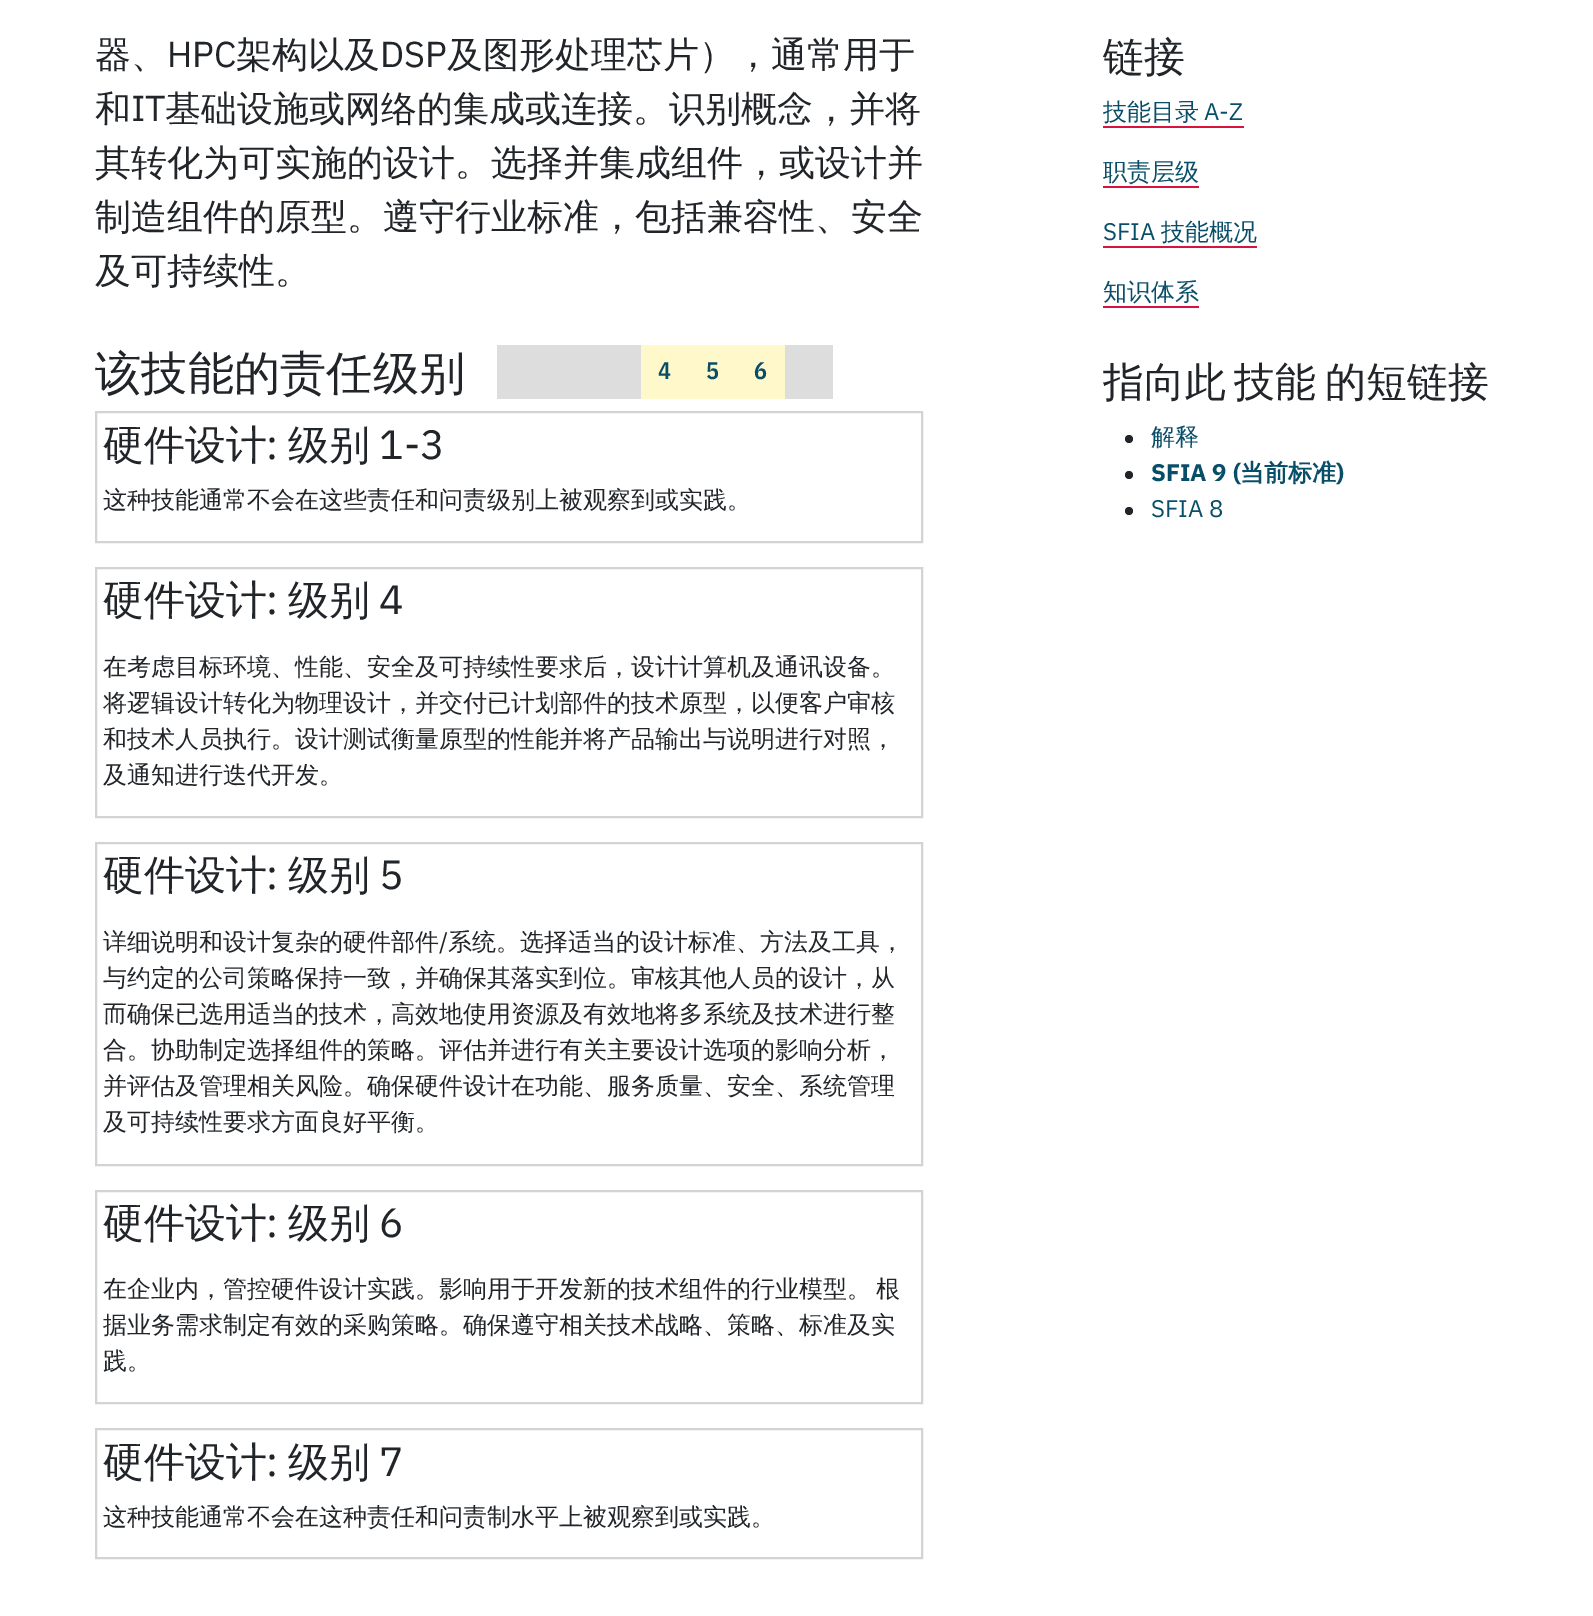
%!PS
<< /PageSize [1593 1616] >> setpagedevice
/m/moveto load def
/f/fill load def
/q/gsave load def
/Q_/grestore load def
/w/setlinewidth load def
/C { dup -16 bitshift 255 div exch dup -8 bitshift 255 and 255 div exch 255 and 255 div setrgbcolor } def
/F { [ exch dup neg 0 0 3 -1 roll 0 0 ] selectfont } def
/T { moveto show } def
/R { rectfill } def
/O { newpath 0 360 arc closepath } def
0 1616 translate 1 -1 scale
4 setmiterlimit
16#FFFFFF C
0 0 1593 1616 R
/WenQuanYiZenHei-Medium 36 F
16#212529 C
(器、) 95 67 T
/IBMPlexSans-Regular 36 F
(HPC) 167 67 T
/WenQuanYiZenHei-Medium 36 F
(架构以及) 236 67 T
/IBMPlexSans-Regular 36 F
(DSP) 380 67 T
/WenQuanYiZenHei-Medium 36 F
(及图形处理芯片），通常用于) 447 67 T
(和) 95 121 T
/IBMPlexSans-Regular 36 F
(IT) 131 121 T
/WenQuanYiZenHei-Medium 36 F
(基础设施或网络的集成或连接。识别概念，并将) 165 121 T
(其转化为可实施的设计。选择并集成组件，或设计并) 95 175 T
(制造组件的原型。遵守行业标准，包括兼容性、安全) 95 229 T
(及可持续性。) 95 283 T
/WenQuanYiZenHei-Medium 46.25 F
(该技能的责任级别) 95 389 T
16#DDDDDD C
497 345 144 54 R
16#FFF8CB C
641 345 144 54 R
/IBMPlexSansCondensed-SemiBold 24 F
16#084E68 C
(4) 658 379 T
(5) 706 379 T
(6) 754 379 T
16#DDDDDD C
785 345 48 54 R
16#D3D3D3 C
2 w
96 412 826 130 rectstroke
/WenQuanYiZenHei-Medium 41 F
16#212529 C
(硬件设计) 103 459 T
/IBMPlexSans-Regular 41 F
(:) 266 459 T
/WenQuanYiZenHei-Medium 41 F
(级别) 288 459 T
/IBMPlexSans-Regular 41 F
(1-3) 379 459 T
/WenQuanYiZenHei-Medium 24 F
(这种技能通常不会在这些责任和问责级别上被观察到或实践。) 103 508 T
16#D3D3D3 C
96 568 826 249 rectstroke
/WenQuanYiZenHei-Medium 41 F
16#212529 C
(硬件设计) 103 614 T
/IBMPlexSans-Regular 41 F
(:) 266 614 T
/WenQuanYiZenHei-Medium 41 F
(级别) 288 614 T
/IBMPlexSans-Regular 41 F
(4) 379 614 T
/WenQuanYiZenHei-Medium 24 F
(在考虑目标环境、性能、安全及可持续性要求后，设计计算机及通讯设备。) 103 675 T
(将逻辑设计转化为物理设计，并交付已计划部件的技术原型，以便客户审核) 103 711 T
(和技术人员执行。设计测试衡量原型的性能并将产品输出与说明进行对照，) 103 747 T
(及通知进行迭代开发。) 103 783 T
16#D3D3D3 C
96 843 826 322 rectstroke
/WenQuanYiZenHei-Medium 41 F
16#212529 C
(硬件设计) 103 889 T
/IBMPlexSans-Regular 41 F
(:) 266 889 T
/WenQuanYiZenHei-Medium 41 F
(级别) 288 889 T
/IBMPlexSans-Regular 41 F
(5) 379 889 T
/WenQuanYiZenHei-Medium 24 F
(详细说明和设计复杂的硬件部件) 103 950 T
/IBMPlexSans-Regular 24 F
(/) 439 950 T
/WenQuanYiZenHei-Medium 24 F
(系统。选择适当的设计标准、方法及工具，) 448 950 T
(与约定的公司策略保持一致，并确保其落实到位。审核其他人员的设计，从) 103 986 T
(而确保已选用适当的技术，高效地使用资源及有效地将多系统及技术进行整) 103 1022 T
(合。协助制定选择组件的策略。评估并进行有关主要设计选项的影响分析，) 103 1058 T
(并评估及管理相关风险。确保硬件设计在功能、服务质量、安全、系统管理) 103 1094 T
(及可持续性要求方面良好平衡。) 103 1130 T
16#D3D3D3 C
96 1191 826 212 rectstroke
/WenQuanYiZenHei-Medium 41 F
16#212529 C
(硬件设计) 103 1237 T
/IBMPlexSans-Regular 41 F
(:) 266 1237 T
/WenQuanYiZenHei-Medium 41 F
(级别) 288 1237 T
/IBMPlexSans-Regular 41 F
(6) 379 1237 T
/WenQuanYiZenHei-Medium 24 F
103 1297 m -2 0 32 (在企业内，管控硬件设计实践。影响用于开发新的技术组件的行业模型。 根) widthshow
(据业务需求制定有效的采购策略。确保遵守相关技术战略、策略、标准及实) 103 1333 T
(践。) 103 1369 T
16#D3D3D3 C
96 1429 826 129 rectstroke
/WenQuanYiZenHei-Medium 41 F
16#212529 C
(硬件设计) 103 1476 T
/IBMPlexSans-Regular 41 F
(:) 266 1476 T
/WenQuanYiZenHei-Medium 41 F
(级别) 288 1476 T
/IBMPlexSans-Regular 41 F
(7) 379 1476 T
/WenQuanYiZenHei-Medium 24 F
(这种技能通常不会在这种责任和问责制水平上被观察到或实践。) 103 1525 T
/WenQuanYiZenHei-Medium 41 F
(链接) 1103 71 T
q
1103 33 396 300 rectclip
/WenQuanYiZenHei-Medium 24 F
16#084E68 C
(技能目录) 1103 120 T
Q_
16#D8133D C
1103 126 141 2 R
/IBMPlexSans-Regular 24 F
16#084E68 C
(A-Z) 1204 120 T
q
1103 33 396 300 rectclip
/WenQuanYiZenHei-Medium 24 F
(职责层级) 1103 180 T
Q_
16#D8133D C
1103 186 96 2 R
16#084E68 C
(SFIA) 1103 240 T
/WenQuanYiZenHei-Medium 24 F
(技能概况) 1161 240 T
16#D8133D C
1103 246 154 2 R
16#084E68 C
(知识体系) 1103 300 T
16#D8133D C
1103 306 96 2 R
q
1103 357 396 194 rectclip
/WenQuanYiZenHei-Medium 41 F
16#212529 C
(指向此) 1103 396 T
Q_
/WenQuanYiZenHei-Medium 41 F
16#212529 C
(技能) 1234 396 T
(的短链接) 1325 396 T
1129 439 4 O f
/WenQuanYiZenHei-Medium 24 F
16#084E68 C
(解释) 1151 445 T
16#212529 C
1129 475 4 O f
/IBMPlexSans-Bold 24 F
16#084E68 C
(SFIA 9 \() 1151 481 T
/WenQuanYiZenHei-Bold 24 F
(当前标准) 1240 481 T
/IBMPlexSans-Bold 24 F
(\)) 1336 481 T
16#212529 C
1129 511 4 O f
/IBMPlexSans-Regular 24 F
16#084E68 C
(SFIA 8) 1151 517 T
showpage
